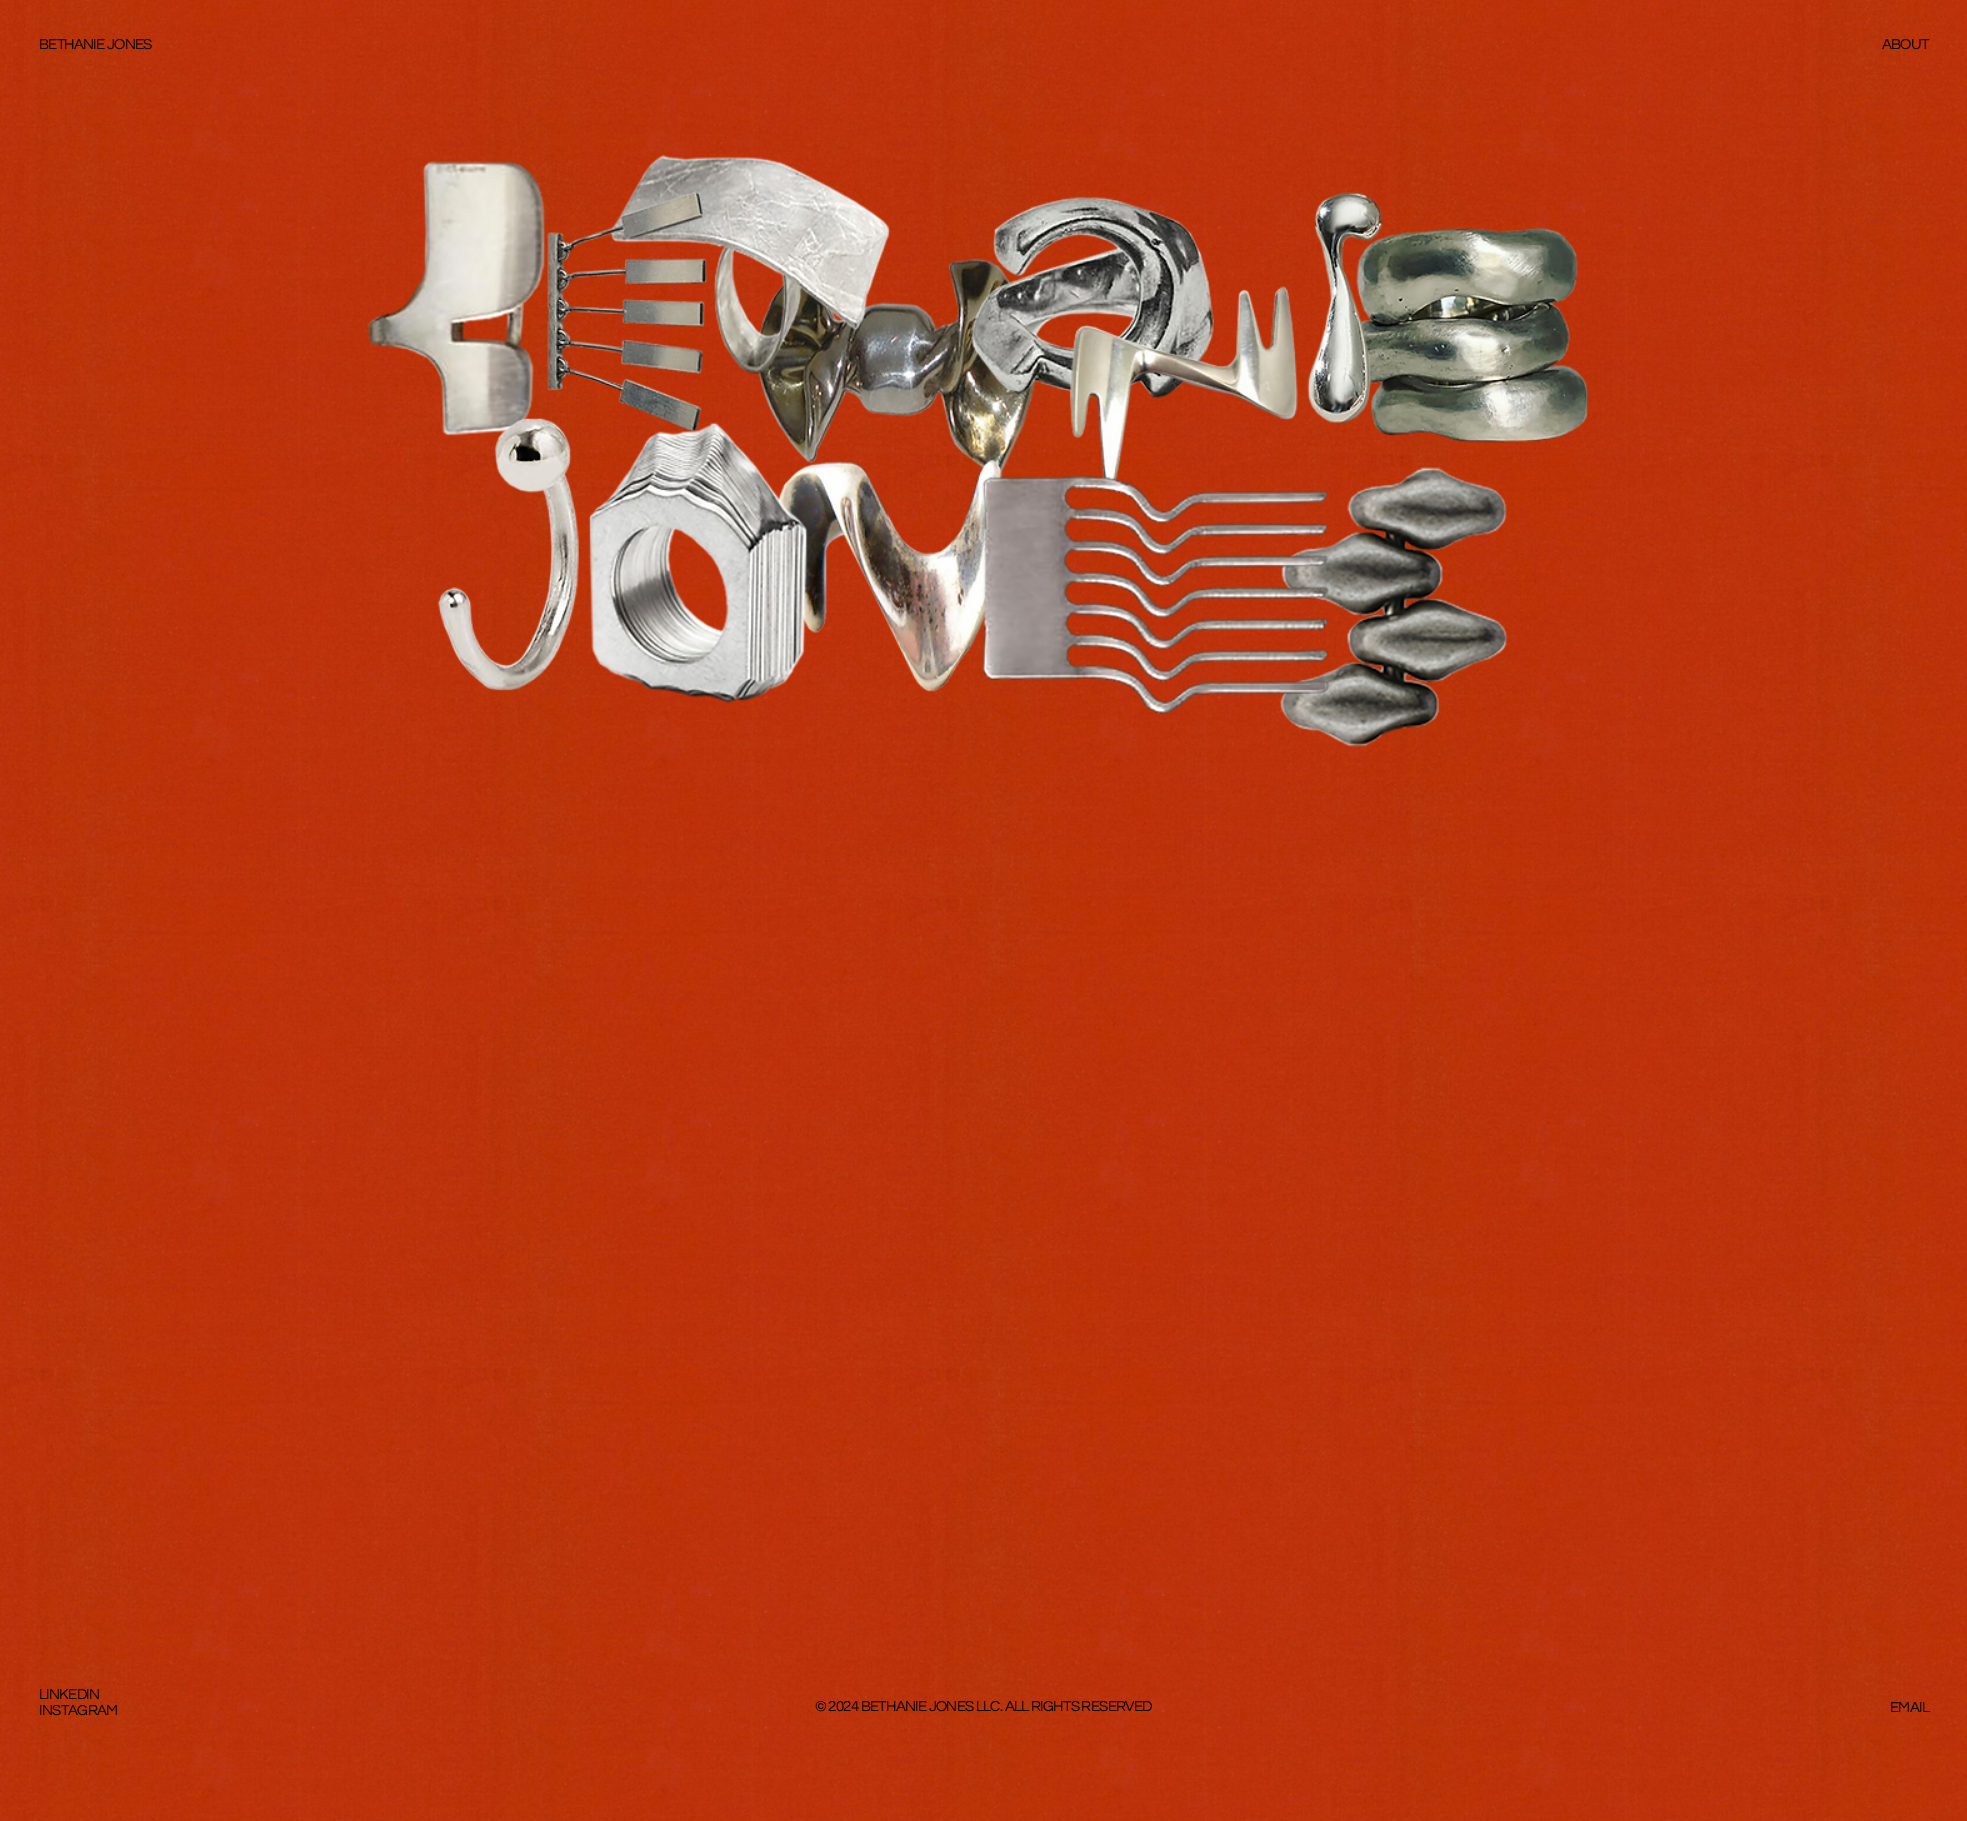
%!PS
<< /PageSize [1967 1821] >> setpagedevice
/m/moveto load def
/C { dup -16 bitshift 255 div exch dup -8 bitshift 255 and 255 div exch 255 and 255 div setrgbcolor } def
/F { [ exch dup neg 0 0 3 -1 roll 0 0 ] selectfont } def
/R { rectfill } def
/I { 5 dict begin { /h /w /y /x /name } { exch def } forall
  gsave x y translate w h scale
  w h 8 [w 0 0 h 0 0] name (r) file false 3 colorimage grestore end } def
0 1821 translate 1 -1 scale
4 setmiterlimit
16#FFFFFF C
0 0 1967 1821 R
(1.rgb) 0 0 1967 1821 I
/Questrial-Regular 15 F
16#000000 C
39 49 m -.75 0 (BETHANIE JONES) ashow
1882 49 m -.75 0 (ABOUT) ashow
(2.rgb) 367 161 179 275 I
(5.rgb) 757 258 282 218 I
(3.rgb) 610 154 280 221 I
(4.rgb) 547 191 161 242 I
(6.rgb) 971 196 243 203 I
(8.rgb) 1356 227 232 216 I
(7.rgb) 1307 192 76 232 I
(9.rgb) 1069 286 229 203 I
(10.rgb) 437 418 142 273 I
(12.rgb) 777 459 226 233 I
(11.rgb) 588 422 220 282 I
(14.rgb) 1280 467 228 280 I
(13.rgb) 982 476 348 238 I
39 1699 m -.75 0 (LINKEDIN) ashow
39 1715 m -.75 0 (INSTAGRAM) ashow
815 1711 m -.75 0 (© 2024 BETHANIE JONES LLC. ALL RIGHTS RESERVED) ashow
1890 1712 m -.75 0 (EMAIL) ashow
showpage
